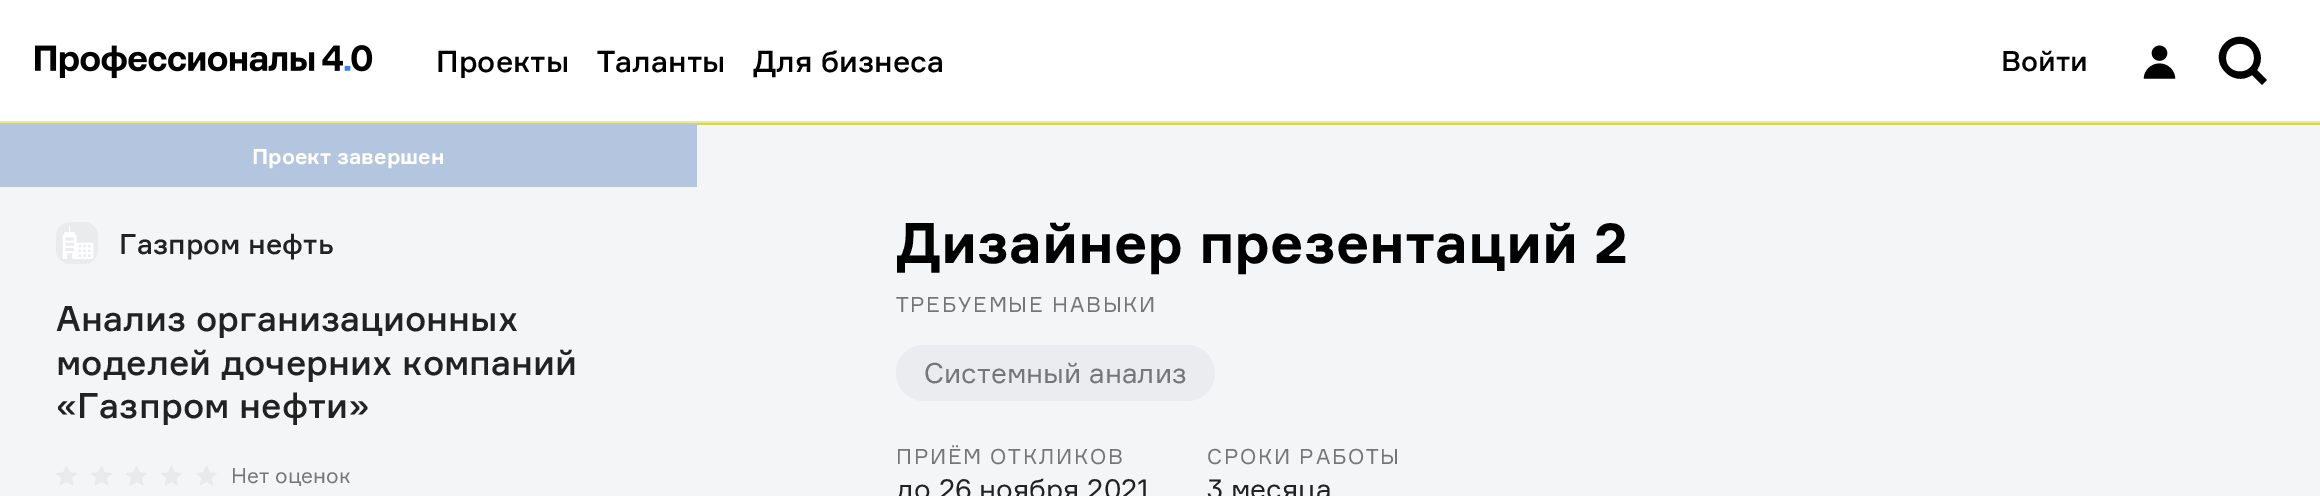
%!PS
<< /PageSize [2320 496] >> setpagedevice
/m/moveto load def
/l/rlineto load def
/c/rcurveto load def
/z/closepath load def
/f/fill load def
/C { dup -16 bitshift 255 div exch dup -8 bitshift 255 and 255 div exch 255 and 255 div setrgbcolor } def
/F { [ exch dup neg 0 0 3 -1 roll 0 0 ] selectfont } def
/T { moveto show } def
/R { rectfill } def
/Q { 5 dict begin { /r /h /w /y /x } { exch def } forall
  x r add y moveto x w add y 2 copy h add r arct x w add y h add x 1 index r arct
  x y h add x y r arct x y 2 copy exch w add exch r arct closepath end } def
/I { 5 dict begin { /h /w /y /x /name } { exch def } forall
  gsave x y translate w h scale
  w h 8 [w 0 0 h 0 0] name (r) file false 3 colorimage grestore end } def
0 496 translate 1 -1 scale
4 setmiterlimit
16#F4F5F7 C
0 0 2320 496 R
16#FFFFFF C
0 0 2320 121 R
16#E0E0E0 C
0 121 2320 2 R
(1.rgb) 35 45 338 34 I
/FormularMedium-Medium 29.75 F
16#000000 C
(Проекты) 436 72 T
(Таланты) 597 72 T
(Для бизнеса) 753 72 T
/FormularMedium-Medium 28 F
(Войти) 2001 71 T
(2.rgb) 2143 45 33 34 I
2252 75 m -20 14 -45 -14 -27 -32 c 19 -18 46 7 32 27 c 10 10 l -5 5 l z 2254 58 m 0 18 -28 18 -28 0 c 0 -19 28 -19 28 0 c z eofill
16#E0E000 C
0 123 2320 2 R
16#B4C5DF C
0 124 697 63 R
/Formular-Bold 21 F
16#FFFFFF C
(Проект завершен) 252 164 T
(3.rgb) 56 222 42 42 I
/FormularMedium-Medium 28 F
16#222222 C
(Газпром нефть) 119 254 T
/FormularMedium-Medium 35 F
(Анализ организационных) 56 331 T
(моделей дочерних компаний) 56 375 T
(«Газпром нефти») 56 418 T
(4.rgb) 56 466 21 20 I
(4.rgb) 91 466 21 20 I
(4.rgb) 126 466 21 20 I
(4.rgb) 161 466 21 20 I
(4.rgb) 196 466 21 20 I
/Formular-Regular 21 F
16#757677 C
(Нет оценок) 231 483 T
/Formular-Bold 56 F
16#000000 C
(Дизайнер презентаций 2) 896 263 T
/Formular-Regular 21 F
16#757677 C
896 312 m 1.75 0 (ТРЕБУЕМЫЕ НАВЫКИ) ashow
16#EBECF0 C
896 345 319 56 28 Q f
/Formular-Regular 28 F
16#757677 C
(Системный анализ) 924 383 T
/Formular-Regular 21 F
896 464 m 1.75 0 (ПРИЁМ ОТКЛИКОВ) ashow
/Formular-Regular 28 F
16#222222 C
(до 26 ноября 2021) 896 499 T
/Formular-Regular 21 F
16#757677 C
1207 464 m 1.75 0 (СРОКИ РАБОТЫ) ashow
/Formular-Regular 28 F
16#222222 C
(3 месяца) 1207 499 T
showpage
